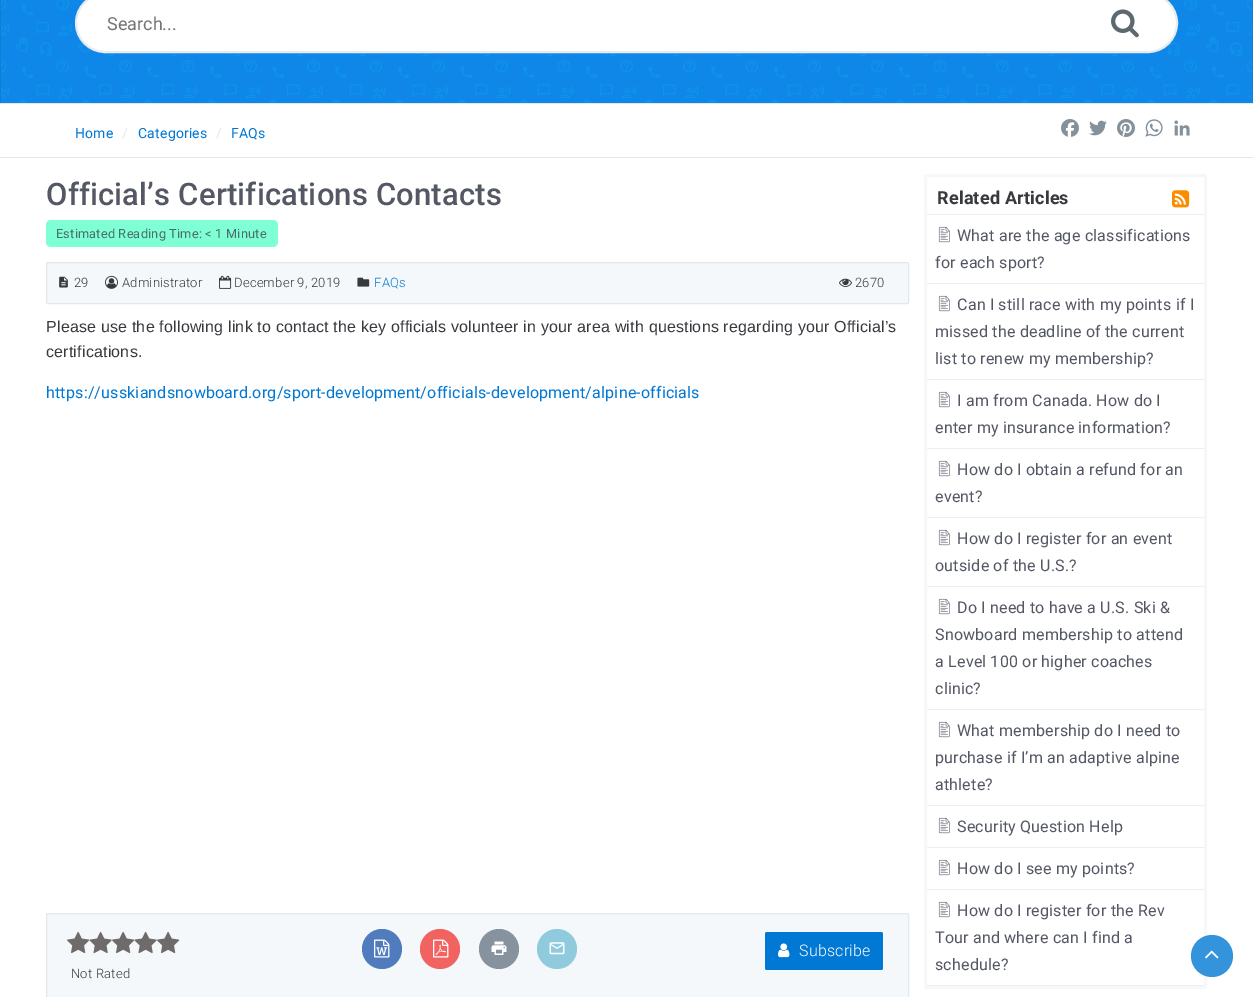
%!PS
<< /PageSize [1253 997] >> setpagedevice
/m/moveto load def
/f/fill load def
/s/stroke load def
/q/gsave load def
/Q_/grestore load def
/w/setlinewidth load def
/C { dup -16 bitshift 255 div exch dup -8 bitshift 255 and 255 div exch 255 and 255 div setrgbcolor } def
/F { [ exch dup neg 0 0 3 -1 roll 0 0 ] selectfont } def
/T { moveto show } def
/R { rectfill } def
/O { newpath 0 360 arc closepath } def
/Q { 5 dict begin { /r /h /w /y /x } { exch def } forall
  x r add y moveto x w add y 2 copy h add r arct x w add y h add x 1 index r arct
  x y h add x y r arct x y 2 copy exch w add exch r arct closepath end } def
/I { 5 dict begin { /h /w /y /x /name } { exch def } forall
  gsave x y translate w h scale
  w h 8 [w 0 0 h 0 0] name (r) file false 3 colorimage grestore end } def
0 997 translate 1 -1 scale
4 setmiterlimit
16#FFFFFF C
0 0 1253 997 R
(1.rgb) 0 0 1253 103 I
16#E1E8EE C
0 103 1253 1 R
16#FFFFFF C
76 -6 1101 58 29 Q q f Q_
16#E9ECEF C
2 w
s
/Roboto-Regular 18 F
16#757575 C
(Search...) 107 30 T
(2.rgb) 1111 9 28 29 I
16#E1E8EE C
0 157 1253 1 R
/Roboto-Regular 14 F
16#0078D4 C
75 138 m .2 0 (Home) ashow
16#E1E8EE C
122 138 m .2 0 (/) ashow
16#0078D4 C
138 138 m .2 0 (Categories) ashow
16#E1E8EE C
216 138 m .2 0 (/) ashow
16#0078D4 C
231 138 m .2 0 (FAQs) ashow
(3.rgb) 1061 119 18 18 I
(4.rgb) 1089 120 18 16 I
(5.rgb) 1117 119 18 18 I
(6.rgb) 1145 119 18 18 I
(7.rgb) 1174 120 16 16 I
/Roboto-Medium 31 F
16#545764 C
46 205 m .2 0 (Official’s Certifications Contacts) ashow
16#7FFFD4 C
46 220 232 27 5 Q f
/Roboto-Regular 12.75 F
16#4C6C6D C
56 238 m .2 0 (Estimated Reading Time: < 1 Minute) ashow
16#F5F8FA C
46.5 262.5 862 41 1.5 Q q f Q_
16#E1E8EE C
1 w
s
(8.rgb) 59 276 9 12 I
/Roboto-Light 13 F
16#37393E C
74 287 m .2 0 (29) ashow
(9.rgb) 105 275 13 14 I
122 287 m .2 0 (Administrator) ashow
(10.rgb) 219 275 13 14 I
234 287 m .2 0 (December 9, 2019) ashow
(11.rgb) 357 277 13 10 I
16#0078D4 C
374 287 m .2 0 (FAQs) ashow
(12.rgb) 839 278 13 9 I
16#37393E C
855 287 m .2 0 (2670) ashow
/LiberationSans-Regular 16 F
46 332 m .2 0 (Please use the following link to contact the key officials volunteer in your area with questions regarding your Official’s) ashow
46 357 m .2 0 (certifications.) ashow
/Roboto-Regular 16 F
16#0078D4 C
46 398 m .2 0 (https://usskiandsnowboard.org/sport-development/officials-development/alpine-officials) ashow
16#F5F8FA C
46.5 913.5 862 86 1.5 Q q f Q_
16#E1E8EE C
s
16#507CBE C
382 949 20 O f
(13.rgb) 374 939 16 19 I
16#F16261 C
440 949 20 O f
(14.rgb) 433 939 16 19 I
16#86939E C
499 949 20 O f
(15.rgb) 491 941 16 14 I
16#90CADD C
557 949 20 O f
(16.rgb) 549 942 16 13 I
16#0078D4 C
765 932 118 38 2 Q f
(17.rgb) 778 943 12 15 I
/Roboto-Light 16 F
16#FFFFFF C
799 956 m .2 0 (Subscribe) ashow
(18.rgb) 67 931 113 23 I
/Roboto-Light 13 F
16#37393E C
71 978 m .2 0 (Not Rated) ashow
16#F5F8FA C
3 w
925.5 175.5 280 812 1.5 Q s
16#EEEEEE C
927 214 277 1 R
/Roboto-Bold 18 F
16#37393E C
937 204 m .2 0 (Related Articles) ashow
(19.rgb) 1172 190 18 18 I
16#EEEEEE C
927 283 277 1 R
(20.rgb) 938 226 12 17 I
/Roboto-Regular 16 F
16#545764 C
957 241 m .2 0 (What are the age classifications) ashow
935 268 m .2 0 (for each sport?) ashow
16#EEEEEE C
927 379 277 1 R
(20.rgb) 938 295 12 17 I
16#545764 C
957 310 m .2 0 (Can I still race with my points if I) ashow
935 337 m .2 0 (missed the deadline of the current) ashow
935 364 m .2 0 (list to renew my membership?) ashow
16#EEEEEE C
927 448 277 1 R
(20.rgb) 938 391 12 17 I
16#545764 C
957 406 m .2 0 (I am from Canada. How do I) ashow
935 433 m .2 0 (enter my insurance information?) ashow
16#EEEEEE C
927 517 277 1 R
(20.rgb) 938 460 12 17 I
16#545764 C
957 475 m .2 0 (How do I obtain a refund for an) ashow
935 502 m .2 0 (event?) ashow
16#EEEEEE C
927 586 277 1 R
(20.rgb) 938 529 12 17 I
16#545764 C
957 544 m .2 0 (How do I register for an event) ashow
935 571 m .2 0 (outside of the U.S.?) ashow
16#EEEEEE C
927 709 277 1 R
(20.rgb) 938 598 12 17 I
16#545764 C
957 613 m .2 0 (Do I need to have a U.S. Ski &) ashow
935 640 m .2 0 (Snowboard membership to attend) ashow
935 667 m .2 0 (a Level 100 or higher coaches) ashow
935 694 m .2 0 (clinic?) ashow
16#EEEEEE C
927 805 277 1 R
(20.rgb) 938 721 12 17 I
16#545764 C
957 736 m .2 0 (What membership do I need to) ashow
935 763 m .2 0 (purchase if I’m an adaptive alpine) ashow
935 790 m .2 0 (athlete?) ashow
16#EEEEEE C
927 847 277 1 R
(20.rgb) 938 817 12 17 I
16#545764 C
957 832 m .2 0 (Security Question Help) ashow
16#EEEEEE C
927 889 277 1 R
(20.rgb) 938 859 12 17 I
16#545764 C
957 874 m .2 0 (How do I see my points?) ashow
16#EEEEEE C
927 985 277 1 R
(20.rgb) 938 901 12 17 I
16#545764 C
957 916 m .2 0 (How do I register for the Rev) ashow
935 943 m .2 0 (Tour and where can I find a) ashow
935 970 m .2 0 (schedule?) ashow
16#3394DB C
1212 956 21 O f
(21.rgb) 1205 950 14 9 I
showpage
